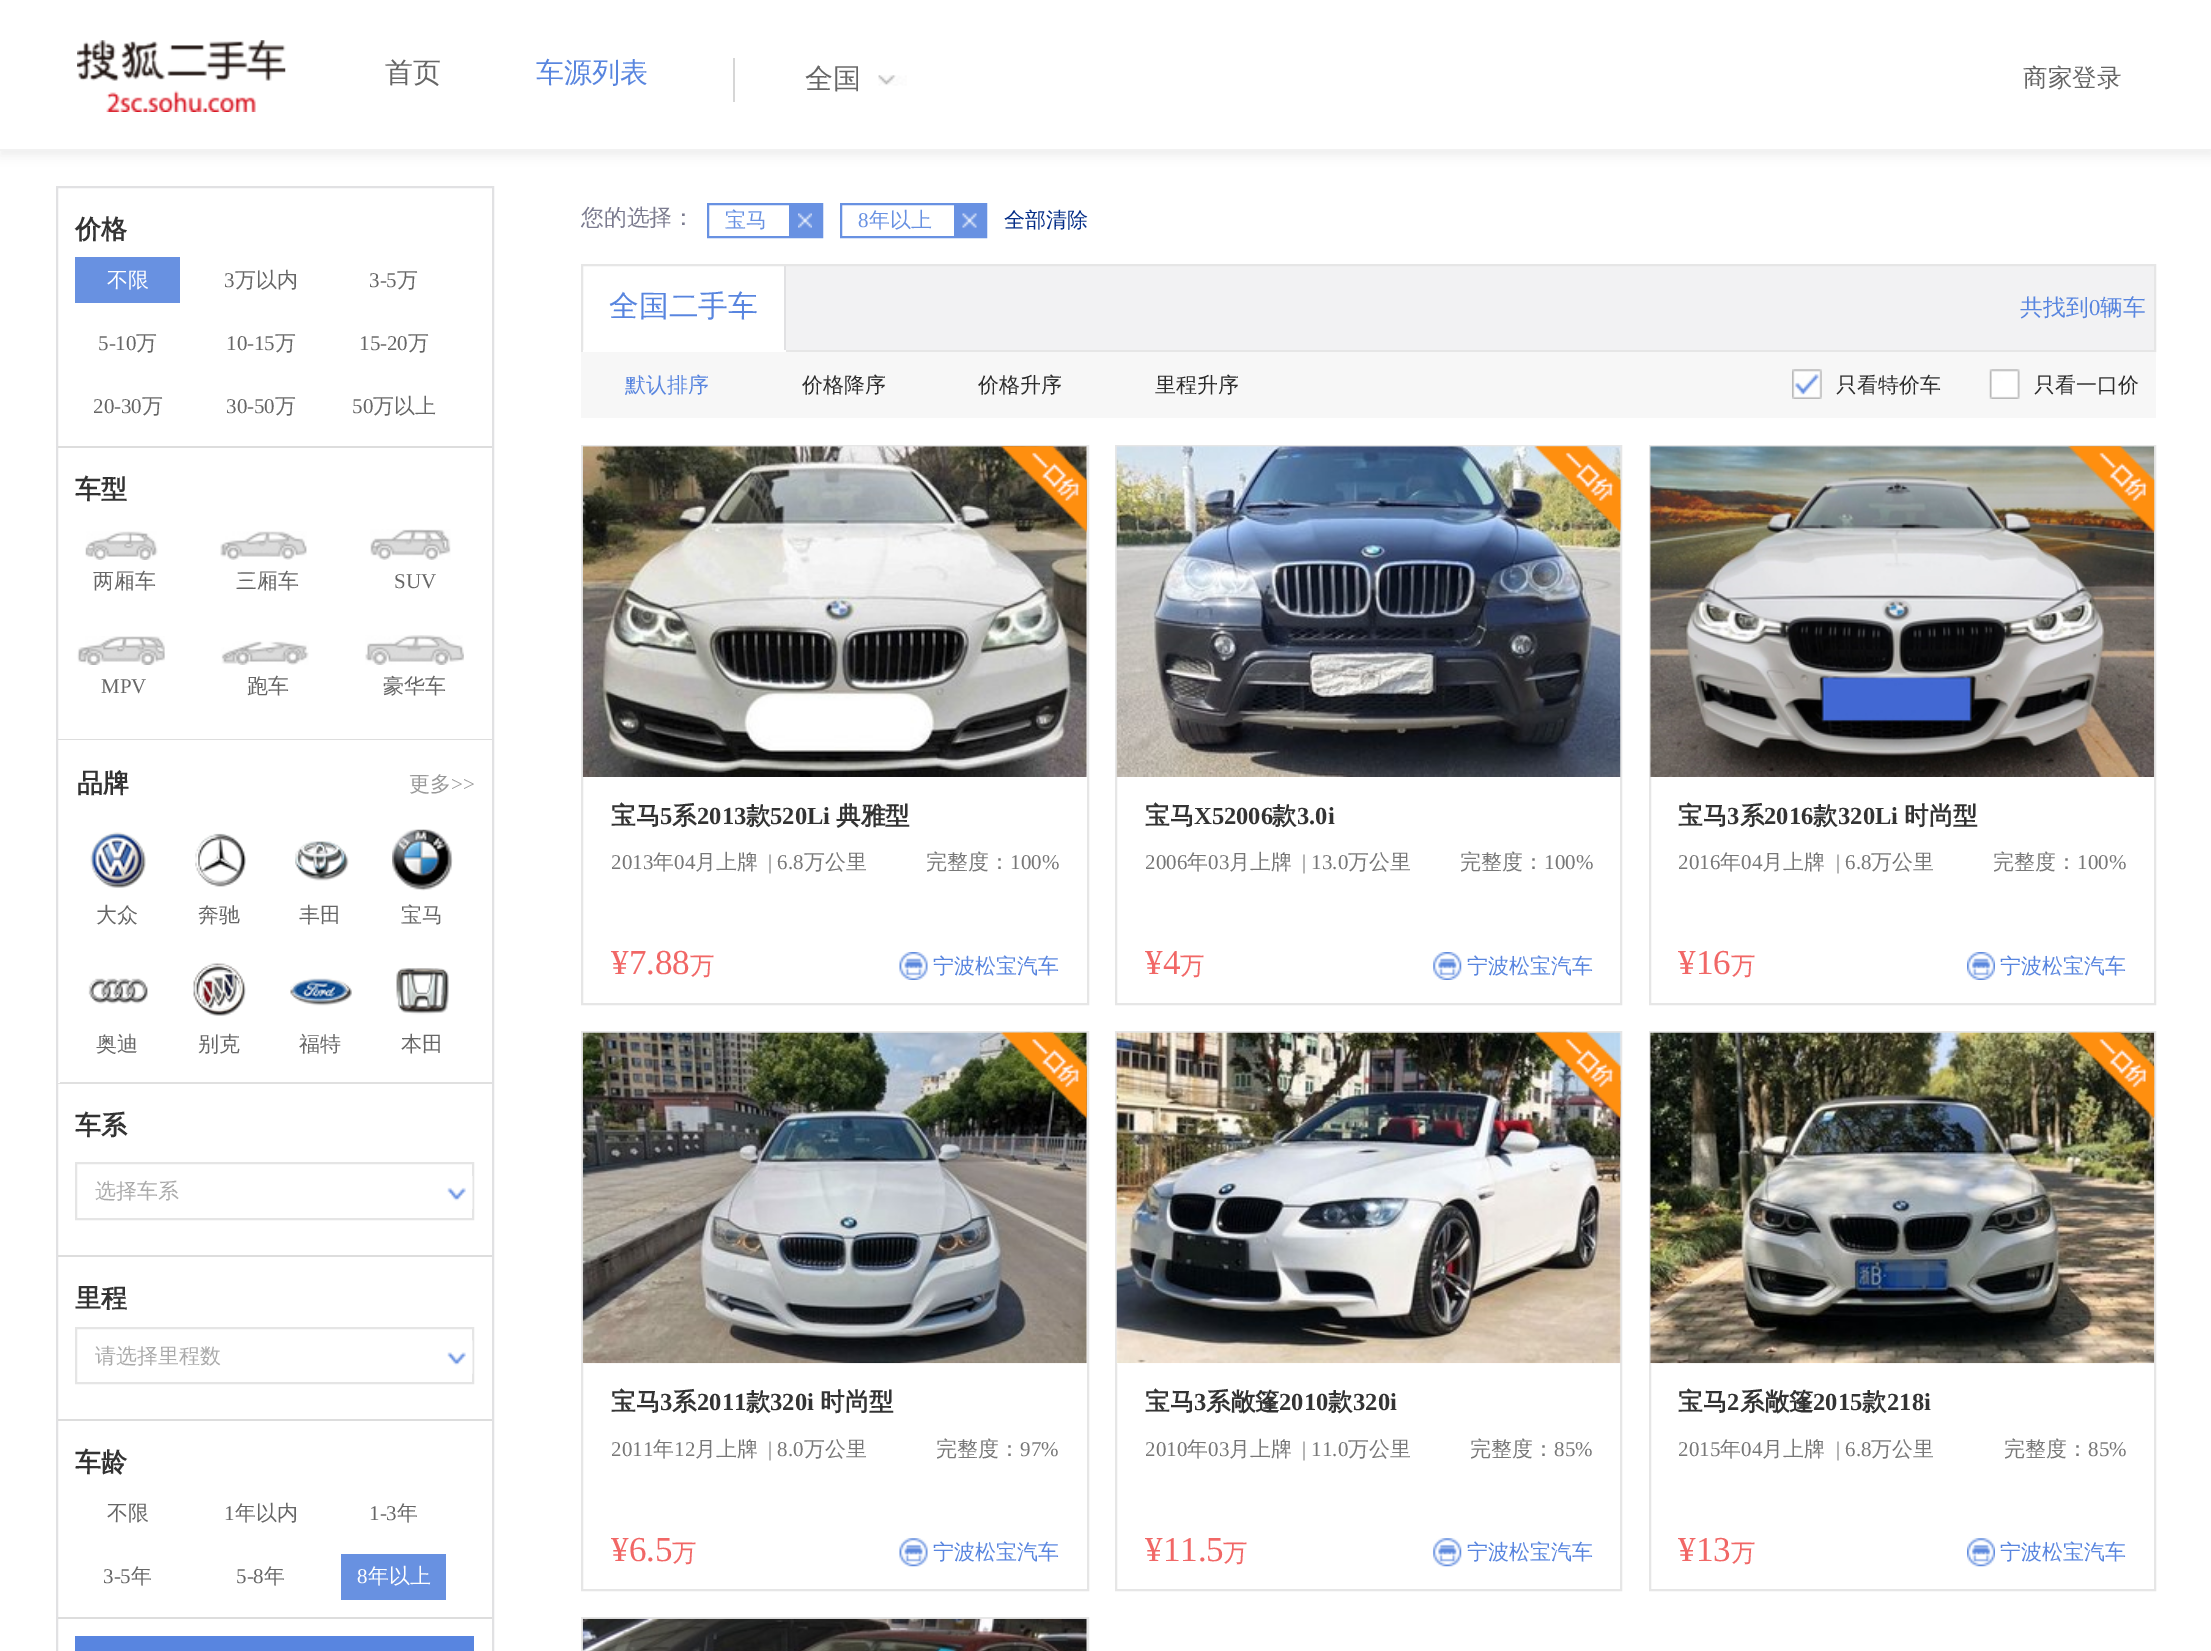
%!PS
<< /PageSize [2211 1651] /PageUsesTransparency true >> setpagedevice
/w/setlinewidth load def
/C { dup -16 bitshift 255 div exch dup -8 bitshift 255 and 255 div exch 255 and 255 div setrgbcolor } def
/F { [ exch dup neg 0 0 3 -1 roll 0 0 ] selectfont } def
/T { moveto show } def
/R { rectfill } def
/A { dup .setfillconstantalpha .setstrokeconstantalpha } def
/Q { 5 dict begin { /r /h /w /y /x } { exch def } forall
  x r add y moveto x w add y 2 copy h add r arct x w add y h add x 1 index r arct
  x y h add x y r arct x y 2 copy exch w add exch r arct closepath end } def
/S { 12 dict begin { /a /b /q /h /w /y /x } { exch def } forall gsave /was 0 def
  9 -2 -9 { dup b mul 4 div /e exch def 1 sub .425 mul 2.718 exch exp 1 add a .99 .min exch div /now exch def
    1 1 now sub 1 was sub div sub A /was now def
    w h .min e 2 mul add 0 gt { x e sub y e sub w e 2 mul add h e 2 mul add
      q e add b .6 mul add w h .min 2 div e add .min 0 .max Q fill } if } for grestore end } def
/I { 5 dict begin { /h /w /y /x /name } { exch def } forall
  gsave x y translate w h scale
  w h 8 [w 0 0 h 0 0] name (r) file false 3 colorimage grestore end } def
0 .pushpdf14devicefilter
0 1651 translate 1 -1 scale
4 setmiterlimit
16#FFFFFF C
0 0 2211 1651 R
16#EEEEEE C
0 5 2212 151 0 5 1 S
16#FFFFFF C
0 0 2211 149 R
16#F2F2F2 C
0 149 2211 2 R
(1.rgb) 77 40 209 72 I
/WenQuanYiZenHei-Medium 28 F
16#666666 C
(首页) 385 82 T
16#5885DF C
(车源列表) 536 82 T
16#D6D6D6 C
733 58 2 44 R
16#666666 C
(全国) 805 88 T
(2.rgb) 878 75 29 11 I
/WenQuanYiZenHei-Medium 24.5 F
(商家登录) 2023 86 T
16#E1E1E3 C
2 w
57 187 436 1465 rectstroke
16#DDDDDD C
58 446 434 2 R
/WenQuanYiZenHei-Bold 26 F
16#333333 C
(价格) 75 238 T
16#6891E1 C
75 257 105 46 R
/WenQuanYiZenHei-Medium 21 F
16#FFFFFF C
(不限) 107 287 T
/LiberationSerif-Regular 21 F
16#666666 C
(3) 224 287 T
/WenQuanYiZenHei-Medium 21 F
(万以内) 235 287 T
/LiberationSerif-Regular 21 F
(3-5) 369 287 T
/WenQuanYiZenHei-Medium 21 F
(万) 397 287 T
/LiberationSerif-Regular 21 F
(5-10) 98 350 T
/WenQuanYiZenHei-Medium 21 F
(万) 136 350 T
/LiberationSerif-Regular 21 F
(10-15) 226 350 T
/WenQuanYiZenHei-Medium 21 F
(万) 275 350 T
/LiberationSerif-Regular 21 F
(15-20) 359 350 T
/WenQuanYiZenHei-Medium 21 F
(万) 408 350 T
/LiberationSerif-Regular 21 F
(20-30) 93 413 T
/WenQuanYiZenHei-Medium 21 F
(万) 142 413 T
/LiberationSerif-Regular 21 F
(30-50) 226 413 T
/WenQuanYiZenHei-Medium 21 F
(万) 275 413 T
/LiberationSerif-Regular 21 F
(50) 352 413 T
/WenQuanYiZenHei-Medium 21 F
(万以上) 373 413 T
16#DDDDDD C
58 739 434 1 R
/WenQuanYiZenHei-Bold 26 F
16#333333 C
(车型) 75 498 T
(3.rgb) 85 531 73 29 I
/WenQuanYiZenHei-Medium 21 F
16#666666 C
(两厢车) 93 588 T
(4.rgb) 220 531 87 29 I
(三厢车) 236 588 T
(5.rgb) 370 529 81 31 I
/LiberationSerif-Regular 21 F
(SUV) 394 588 T
(6.rgb) 77 636 88 29 I
(MPV) 101 693 T
(7.rgb) 221 641 88 24 I
/WenQuanYiZenHei-Medium 21 F
(跑车) 247 693 T
(8.rgb) 365 635 99 30 I
(豪华车) 383 693 T
16#E0E0E0 C
58 1082 434 2 R
16#FFFFFF C
58 1082 2 1 R
/WenQuanYiZenHei-Bold 26 F
16#333333 C
(品牌) 77 792 T
/WenQuanYiZenHei-Medium 21 F
16#999999 C
(更多) 409 791 T
/LiberationSerif-Regular 21 F
(>>) 451 791 T
(9.rgb) 90 832 56 56 I
/WenQuanYiZenHei-Medium 21 F
16#666666 C
(大众) 96 922 T
(10.rgb) 195 833 51 54 I
(奔驰) 198 922 T
(11.rgb) 295 841 54 40 I
(丰田) 299 922 T
(12.rgb) 392 829 61 62 I
(宝马) 401 922 T
(13.rgb) 88 978 60 26 I
(奥迪) 96 1051 T
(14.rgb) 193 963 53 53 I
(别克) 198 1051 T
(15.rgb) 290 978 62 28 I
(福特) 299 1051 T
(16.rgb) 396 968 53 47 I
(本田) 401 1051 T
16#DDDDDD C
58 1255 434 2 R
/WenQuanYiZenHei-Bold 26 F
16#333333 C
(车系) 75 1134 T
16#E5E5E5 C
76 1163 397 56 rectstroke
(17.rgb) 447 1176 26 33 I
/WenQuanYiZenHei-Medium 21 F
16#AAAAAA C
(选择车系) 95 1198 T
16#DDDDDD C
58 1419 434 2 R
/WenQuanYiZenHei-Bold 26 F
16#333333 C
(里程) 75 1307 T
16#E5E5E5 C
76 1328 397 55 rectstroke
(18.rgb) 447 1340 26 34 I
/WenQuanYiZenHei-Medium 21 F
16#AAAAAA C
(请选择里程数) 95 1363 T
16#DDDDDD C
58 1617 434 2 R
/WenQuanYiZenHei-Bold 26 F
16#333333 C
(车龄) 75 1471 T
/WenQuanYiZenHei-Medium 21 F
16#666666 C
(不限) 107 1520 T
/LiberationSerif-Regular 21 F
(1) 224 1520 T
/WenQuanYiZenHei-Medium 21 F
(年以内) 235 1520 T
/LiberationSerif-Regular 21 F
(1-3) 369 1520 T
/WenQuanYiZenHei-Medium 21 F
(年) 397 1520 T
/LiberationSerif-Regular 21 F
(3-5) 103 1583 T
/WenQuanYiZenHei-Medium 21 F
(年) 131 1583 T
/LiberationSerif-Regular 21 F
(5-8) 236 1583 T
/WenQuanYiZenHei-Medium 21 F
(年) 264 1583 T
16#6891E1 C
341 1554 105 46 R
/LiberationSerif-Regular 21 F
16#FFFFFF C
(8) 357 1583 T
/WenQuanYiZenHei-Medium 21 F
(年以上) 368 1583 T
16#5885E0 C
75 1636 399 15 R
/WenQuanYiZenHei-Medium 22.75 F
16#7B7B8F C
(您的选择：) 581 225 T
16#6891E2 C
708 204 114 33 rectstroke
/WenQuanYiZenHei-Medium 21 F
(宝马) 725 227 T
789 205 32 31 R
(19.rgb) 798 213 14 15 I
841 204 145 33 rectstroke
/LiberationSerif-Regular 21 F
(8) 858 227 T
/WenQuanYiZenHei-Medium 21 F
(年以上) 869 227 T
954 205 31 31 R
(20.rgb) 962 213 15 15 I
16#042D87 C
(全部清除) 1004 227 T
16#F2F2F3 C
786 266 1368 84 R
16#E6E6E6 C
582 265 1573 86 rectstroke
16#E1E1E3 C
784 266 2 86 R
16#FFFFFF C
583 350 203 2 R
/WenQuanYiZenHei-Medium 29.75 F
16#5885DF C
(全国二手车) 609 316 T
/WenQuanYiZenHei-Medium 22.75 F
(共找到) 2020 315 T
/LiberationSerif-Regular 22.75 F
(0) 2089 315 T
/WenQuanYiZenHei-Medium 22.75 F
(辆车) 2100 315 T
16#F7F7F7 C
581 352 1575 66 R
/WenQuanYiZenHei-Medium 21 F
16#5885DF C
(默认排序) 625 392 T
16#2D2D2D C
(价格降序) 802 392 T
(价格升序) 978 392 T
(里程升序) 1155 392 T
(21.rgb) 1792 369 30 30 I
(只看特价车) 1836 392 T
(22.rgb) 1989 369 31 30 I
(只看一口价) 2034 392 T
16#E6E6E6 C
582 446 506 558 rectstroke
(23.rgb) 582 446 505 331 I
(24.rgb) 1000 446 87 87 I
/WenQuanYiZenHei-Bold 24.5 F
16#333333 C
(宝马) 611 824 T
/LiberationSerif-Bold 24.5 F
(5) 660 824 T
/WenQuanYiZenHei-Bold 24.5 F
(系) 672 824 T
/LiberationSerif-Bold 24.5 F
(2013) 697 824 T
/WenQuanYiZenHei-Bold 24.5 F
(款) 746 824 T
/LiberationSerif-Bold 24.5 F
(520Li) 770 824 T
/WenQuanYiZenHei-Bold 24.5 F
(典雅型) 836 824 T
/LiberationSerif-Regular 21 F
16#777777 C
(2013) 611 869 T
/WenQuanYiZenHei-Medium 21 F
(年) 653 869 T
/LiberationSerif-Regular 21 F
(04) 674 869 T
/WenQuanYiZenHei-Medium 21 F
(月上牌) 695 869 T
/LiberationSerif-Regular 21 F
(| 6.8) 768 869 T
/WenQuanYiZenHei-Medium 21 F
(万公里) 804 869 T
(完整度：) 926 869 T
/LiberationSerif-Regular 21 F
(100%) 1010 869 T
/LiberationSerif-Regular 35 F
16#F16766 C
(¥7.88) 611 974 T
/WenQuanYiZenHei-Medium 24.5 F
(万) 690 974 T
(25.rgb) 899 952 29 28 I
/WenQuanYiZenHei-Medium 21 F
16#5885DF C
(宁波松宝汽车) 933 973 T
16#E6E6E6 C
1116 446 505 558 rectstroke
(26.rgb) 1116 446 505 331 I
(27.rgb) 1534 446 87 87 I
/WenQuanYiZenHei-Bold 24.5 F
16#333333 C
(宝马) 1145 824 T
/LiberationSerif-Bold 24.5 F
(X52006) 1194 824 T
/WenQuanYiZenHei-Bold 24.5 F
(款) 1272 824 T
/LiberationSerif-Bold 24.5 F
(3.0i) 1297 824 T
/LiberationSerif-Regular 21 F
16#777777 C
(2006) 1145 869 T
/WenQuanYiZenHei-Medium 21 F
(年) 1187 869 T
/LiberationSerif-Regular 21 F
(03) 1208 869 T
/WenQuanYiZenHei-Medium 21 F
(月上牌) 1229 869 T
/LiberationSerif-Regular 21 F
(| 13.0) 1302 869 T
/WenQuanYiZenHei-Medium 21 F
(万公里) 1348 869 T
(完整度：) 1460 869 T
/LiberationSerif-Regular 21 F
(100%) 1544 869 T
/LiberationSerif-Regular 35 F
16#F16766 C
(¥4) 1145 974 T
/WenQuanYiZenHei-Medium 24.5 F
(万) 1180 974 T
(28.rgb) 1433 952 29 28 I
/WenQuanYiZenHei-Medium 21 F
16#5885DF C
(宁波松宝汽车) 1467 973 T
16#E6E6E6 C
1650 446 505 558 rectstroke
(29.rgb) 1650 446 505 331 I
(30.rgb) 2068 446 87 87 I
/WenQuanYiZenHei-Bold 24.5 F
16#333333 C
(宝马) 1678 824 T
/LiberationSerif-Bold 24.5 F
(3) 1727 824 T
/WenQuanYiZenHei-Bold 24.5 F
(系) 1740 824 T
/LiberationSerif-Bold 24.5 F
(2016) 1764 824 T
/WenQuanYiZenHei-Bold 24.5 F
(款) 1813 824 T
/LiberationSerif-Bold 24.5 F
(320Li) 1838 824 T
/WenQuanYiZenHei-Bold 24.5 F
(时尚型) 1904 824 T
/LiberationSerif-Regular 21 F
16#777777 C
(2016) 1678 869 T
/WenQuanYiZenHei-Medium 21 F
(年) 1720 869 T
/LiberationSerif-Regular 21 F
(04) 1741 869 T
/WenQuanYiZenHei-Medium 21 F
(月上牌) 1762 869 T
/LiberationSerif-Regular 21 F
(| 6.8) 1836 869 T
/WenQuanYiZenHei-Medium 21 F
(万公里) 1871 869 T
(完整度：) 1993 869 T
/LiberationSerif-Regular 21 F
(100%) 2077 869 T
/LiberationSerif-Regular 35 F
16#F16766 C
(¥16) 1678 974 T
/WenQuanYiZenHei-Medium 24.5 F
(万) 1731 974 T
(31.rgb) 1967 952 28 28 I
/WenQuanYiZenHei-Medium 21 F
16#5885DF C
(宁波松宝汽车) 2000 973 T
16#E6E6E6 C
582 1032 506 558 rectstroke
(32.rgb) 582 1032 505 332 I
(33.rgb) 1000 1032 87 87 I
/WenQuanYiZenHei-Bold 24.5 F
16#333333 C
(宝马) 611 1410 T
/LiberationSerif-Bold 24.5 F
(3) 660 1410 T
/WenQuanYiZenHei-Bold 24.5 F
(系) 672 1410 T
/LiberationSerif-Bold 24.5 F
(2011) 697 1410 T
/WenQuanYiZenHei-Bold 24.5 F
(款) 746 1410 T
/LiberationSerif-Bold 24.5 F
(320i) 770 1410 T
/WenQuanYiZenHei-Bold 24.5 F
(时尚型) 820 1410 T
/LiberationSerif-Regular 21 F
16#777777 C
(2011) 611 1456 T
/WenQuanYiZenHei-Medium 21 F
(年) 653 1456 T
/LiberationSerif-Regular 21 F
(12) 674 1456 T
/WenQuanYiZenHei-Medium 21 F
(月上牌) 695 1456 T
/LiberationSerif-Regular 21 F
(| 8.0) 768 1456 T
/WenQuanYiZenHei-Medium 21 F
(万公里) 804 1456 T
(完整度：) 936 1456 T
/LiberationSerif-Regular 21 F
(97%) 1020 1456 T
/LiberationSerif-Regular 35 F
16#F16766 C
(¥6.5) 611 1561 T
/WenQuanYiZenHei-Medium 24.5 F
(万) 672 1561 T
(34.rgb) 899 1538 29 29 I
/WenQuanYiZenHei-Medium 21 F
16#5885DF C
(宁波松宝汽车) 933 1559 T
16#E6E6E6 C
1116 1032 505 558 rectstroke
(35.rgb) 1116 1032 505 332 I
(36.rgb) 1534 1032 87 87 I
/WenQuanYiZenHei-Bold 24.5 F
16#333333 C
(宝马) 1145 1410 T
/LiberationSerif-Bold 24.5 F
(3) 1194 1410 T
/WenQuanYiZenHei-Bold 24.5 F
(系敞篷) 1206 1410 T
/LiberationSerif-Bold 24.5 F
(2010) 1279 1410 T
/WenQuanYiZenHei-Bold 24.5 F
(款) 1328 1410 T
/LiberationSerif-Bold 24.5 F
(320i) 1353 1410 T
/LiberationSerif-Regular 21 F
16#777777 C
(2010) 1145 1456 T
/WenQuanYiZenHei-Medium 21 F
(年) 1187 1456 T
/LiberationSerif-Regular 21 F
(03) 1208 1456 T
/WenQuanYiZenHei-Medium 21 F
(月上牌) 1229 1456 T
/LiberationSerif-Regular 21 F
(| 11.0) 1302 1456 T
/WenQuanYiZenHei-Medium 21 F
(万公里) 1348 1456 T
(完整度：) 1470 1456 T
/LiberationSerif-Regular 21 F
(85%) 1554 1456 T
/LiberationSerif-Regular 35 F
16#F16766 C
(¥11.5) 1145 1561 T
/WenQuanYiZenHei-Medium 24.5 F
(万) 1223 1561 T
(37.rgb) 1433 1538 29 29 I
/WenQuanYiZenHei-Medium 21 F
16#5885DF C
(宁波松宝汽车) 1467 1559 T
16#E6E6E6 C
1650 1032 505 558 rectstroke
(38.rgb) 1650 1032 505 332 I
(39.rgb) 2068 1032 87 87 I
/WenQuanYiZenHei-Bold 24.5 F
16#333333 C
(宝马) 1678 1410 T
/LiberationSerif-Bold 24.5 F
(2) 1727 1410 T
/WenQuanYiZenHei-Bold 24.5 F
(系敞篷) 1740 1410 T
/LiberationSerif-Bold 24.5 F
(2015) 1813 1410 T
/WenQuanYiZenHei-Bold 24.5 F
(款) 1862 1410 T
/LiberationSerif-Bold 24.5 F
(218i) 1887 1410 T
/LiberationSerif-Regular 21 F
16#777777 C
(2015) 1678 1456 T
/WenQuanYiZenHei-Medium 21 F
(年) 1720 1456 T
/LiberationSerif-Regular 21 F
(04) 1741 1456 T
/WenQuanYiZenHei-Medium 21 F
(月上牌) 1762 1456 T
/LiberationSerif-Regular 21 F
(| 6.8) 1836 1456 T
/WenQuanYiZenHei-Medium 21 F
(万公里) 1871 1456 T
(完整度：) 2004 1456 T
/LiberationSerif-Regular 21 F
(85%) 2088 1456 T
/LiberationSerif-Regular 35 F
16#F16766 C
(¥13) 1678 1561 T
/WenQuanYiZenHei-Medium 24.5 F
(万) 1731 1561 T
(40.rgb) 1967 1538 28 29 I
/WenQuanYiZenHei-Medium 21 F
16#5885DF C
(宁波松宝汽车) 2000 1559 T
16#E6E6E6 C
582 1618 506 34 rectstroke
(41.rgb) 582 1618 505 33 I
.poppdf14devicefilter showpage
